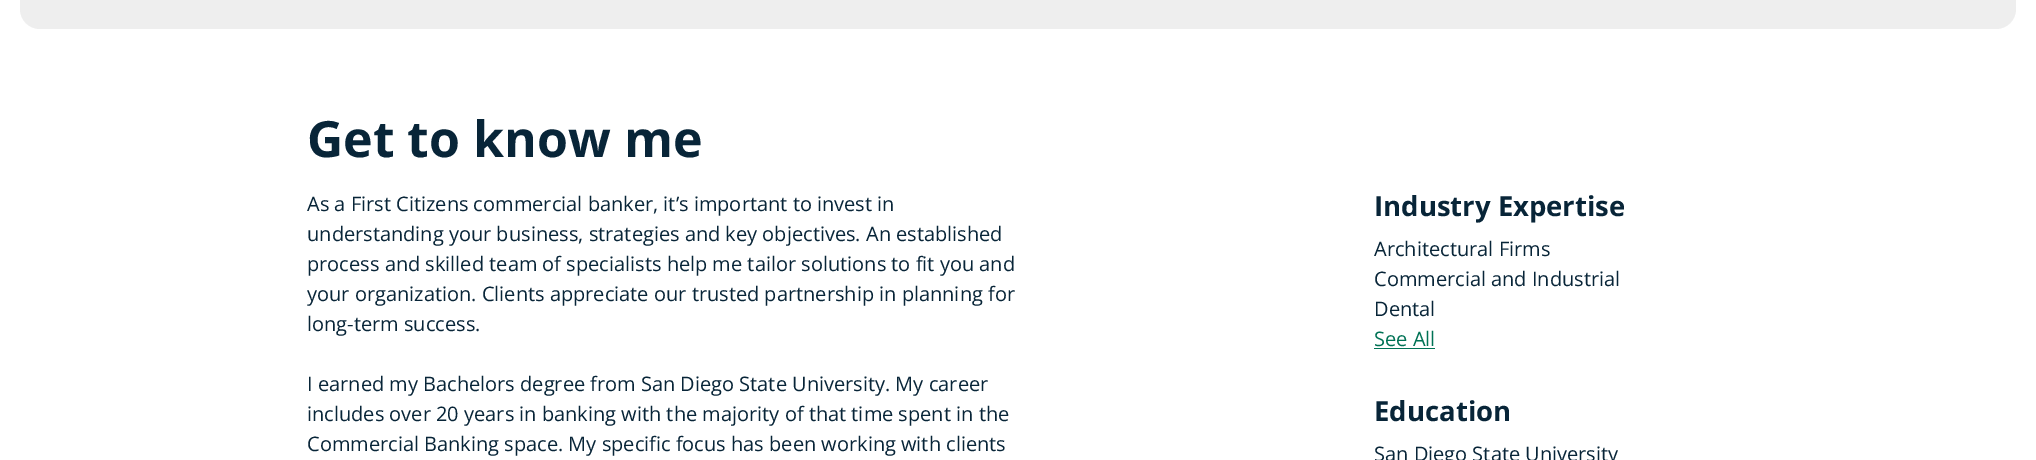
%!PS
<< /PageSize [2036 460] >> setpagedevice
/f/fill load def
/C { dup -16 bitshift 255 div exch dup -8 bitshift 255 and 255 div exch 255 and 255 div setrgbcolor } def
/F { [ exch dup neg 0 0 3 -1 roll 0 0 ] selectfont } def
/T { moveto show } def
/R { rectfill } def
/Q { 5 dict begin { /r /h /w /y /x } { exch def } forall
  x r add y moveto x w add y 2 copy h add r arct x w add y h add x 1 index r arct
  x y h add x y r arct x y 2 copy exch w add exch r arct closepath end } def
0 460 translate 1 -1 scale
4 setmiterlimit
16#FFFFFF C
0 0 2036 460 R
16#EEEEEE C
20 -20 1996 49 20 Q f
/OpenSans-Bold 50 F
16#082538 C
(Get to know me) 307 157 T
/OpenSans-Regular 20 F
(As a First Citizens commercial banker, it’s important to invest in) 307 211 T
(understanding your business, strategies and key objectives. An established) 307 241 T
(process and skilled team of specialists help me tailor solutions to fit you and) 307 271 T
(your organization. Clients appreciate our trusted partnership in planning for) 307 301 T
(long-term success.) 307 331 T
(I earned my Bachelors degree from San Diego State University. My career) 307 391 T
(includes over 20 years in banking with the majority of that time spent in the) 307 421 T
(Commercial Banking space. My specific focus has been working with clients) 307 451 T
/OpenSans-Bold 27.5 F
(Industry Expertise) 1374 216 T
/OpenSans-Regular 20 F
(Architectural Firms) 1374 256 T
(Commercial and Industrial) 1374 286 T
(Dental) 1374 316 T
16#007255 C
(See All) 1374 346 T
1374 348 61 1 R
/OpenSans-Bold 27.5 F
16#082538 C
(Education) 1374 421 T
/OpenSans-Regular 20 F
(San Diego State University) 1374 461 T
showpage
